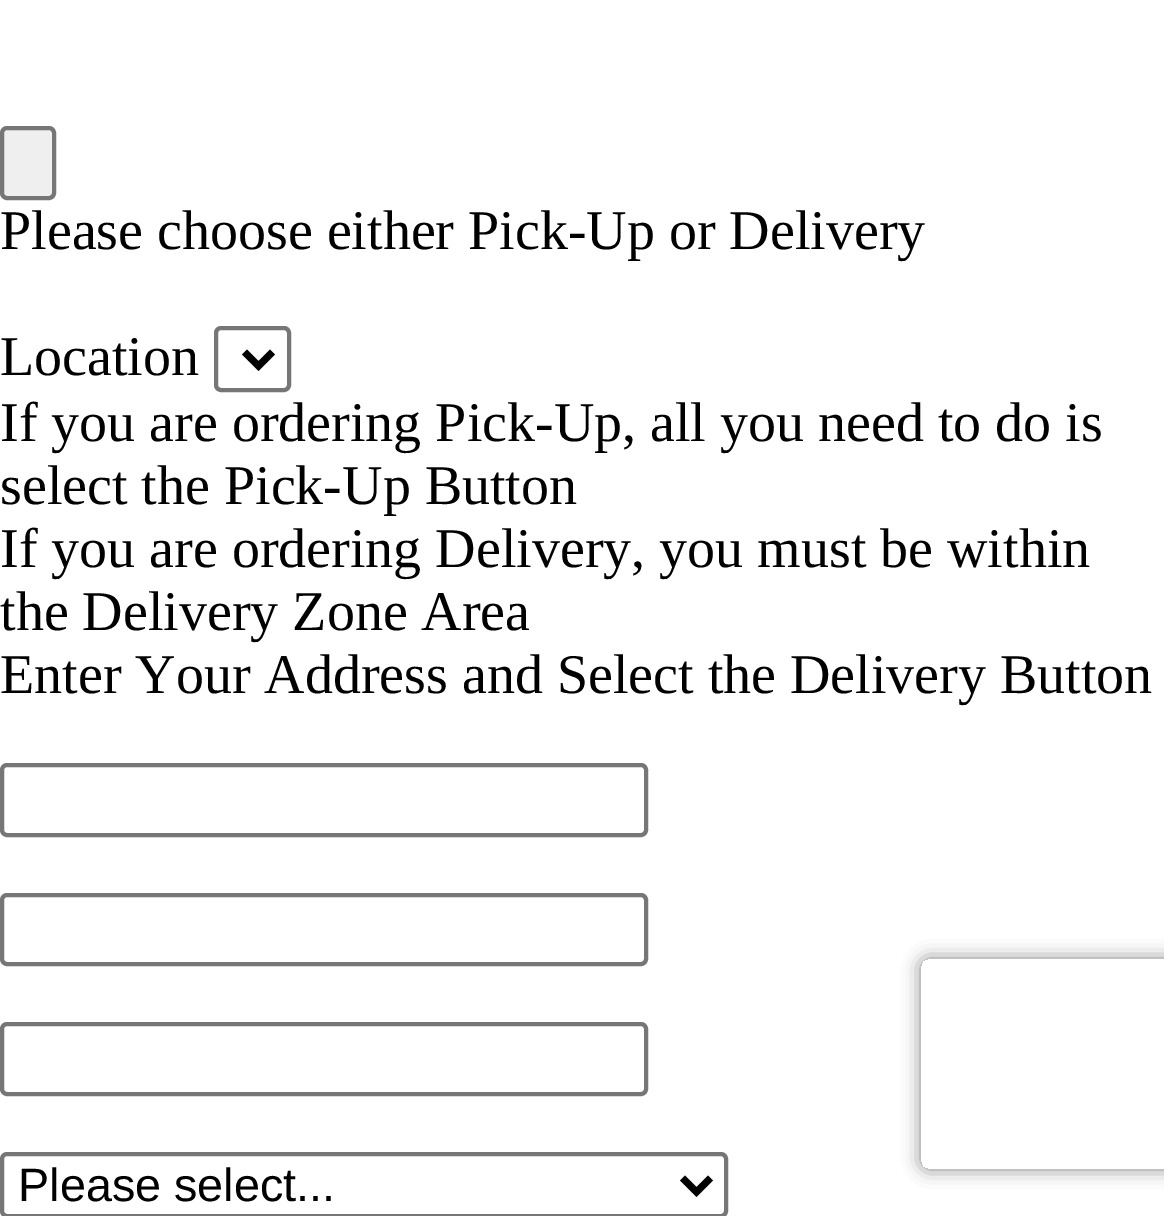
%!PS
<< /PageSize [1164 1216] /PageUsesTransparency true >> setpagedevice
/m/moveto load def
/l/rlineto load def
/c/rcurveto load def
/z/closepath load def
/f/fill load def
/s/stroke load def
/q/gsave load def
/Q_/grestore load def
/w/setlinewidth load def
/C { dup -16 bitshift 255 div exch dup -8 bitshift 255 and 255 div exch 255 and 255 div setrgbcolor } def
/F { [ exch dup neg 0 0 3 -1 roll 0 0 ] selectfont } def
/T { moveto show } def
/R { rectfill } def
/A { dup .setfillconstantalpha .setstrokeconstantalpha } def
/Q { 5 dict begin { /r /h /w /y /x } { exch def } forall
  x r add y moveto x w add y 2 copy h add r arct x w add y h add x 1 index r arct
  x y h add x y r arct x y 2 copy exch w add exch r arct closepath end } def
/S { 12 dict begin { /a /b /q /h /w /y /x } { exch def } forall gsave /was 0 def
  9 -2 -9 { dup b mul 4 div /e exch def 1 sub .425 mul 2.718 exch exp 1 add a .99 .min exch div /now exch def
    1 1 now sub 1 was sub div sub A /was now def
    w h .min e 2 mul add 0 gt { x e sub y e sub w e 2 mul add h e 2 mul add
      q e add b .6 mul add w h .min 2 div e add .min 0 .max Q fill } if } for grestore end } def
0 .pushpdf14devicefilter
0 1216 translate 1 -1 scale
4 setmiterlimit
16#FFFFFF C
0 0 1164 1216 R
16#EFEFEF C
2 128 52 70 5 Q q f Q_
16#767676 C
4 w
s
/LiberationSerif-Regular 56 F
16#000000 C
(Please choose either Pick-Up or Delivery) 0 249 T
(Location) 0 375 T
16#767676 C
216 328 73 62 5 Q s
16#000000 C
7 w
244.5 352 m 14 14 l 14 -14 l s
(If you are ordering Pick-Up, all you need to do is) 0 441 T
(select the Pick-Up Button) 0 504 T
(If you are ordering Delivery, you must be within) 0 567 T
(the Delivery Zone Area) 0 630 T
(Enter Your Address and Select the Delivery Button) 0 693 T
16#767676 C
4 w
2 765 644 70 5 Q s
2 895 644 69 5 Q s
2 1024 644 70 5 Q s
2 1154 724 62 5 Q s
16#000000 C
7 w
682.5 1178 m 14 14 l 14 -14 l s
/LiberationSans-Regular 46.75 F
(Please select...) 18 1201 T
q
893 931 m 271 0 l 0 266 l -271 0 l z 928 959 m 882 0 l 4 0 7 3 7 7 c 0 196 l 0 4 -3 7 -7 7 c -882 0 l -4 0 -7 -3 -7 -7 c 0 -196 l 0 -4 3 -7 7 -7 c z eoclip newpath
16#808080 C
921 959 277 210 7 9 1 S
Q_
.poppdf14devicefilter showpage
